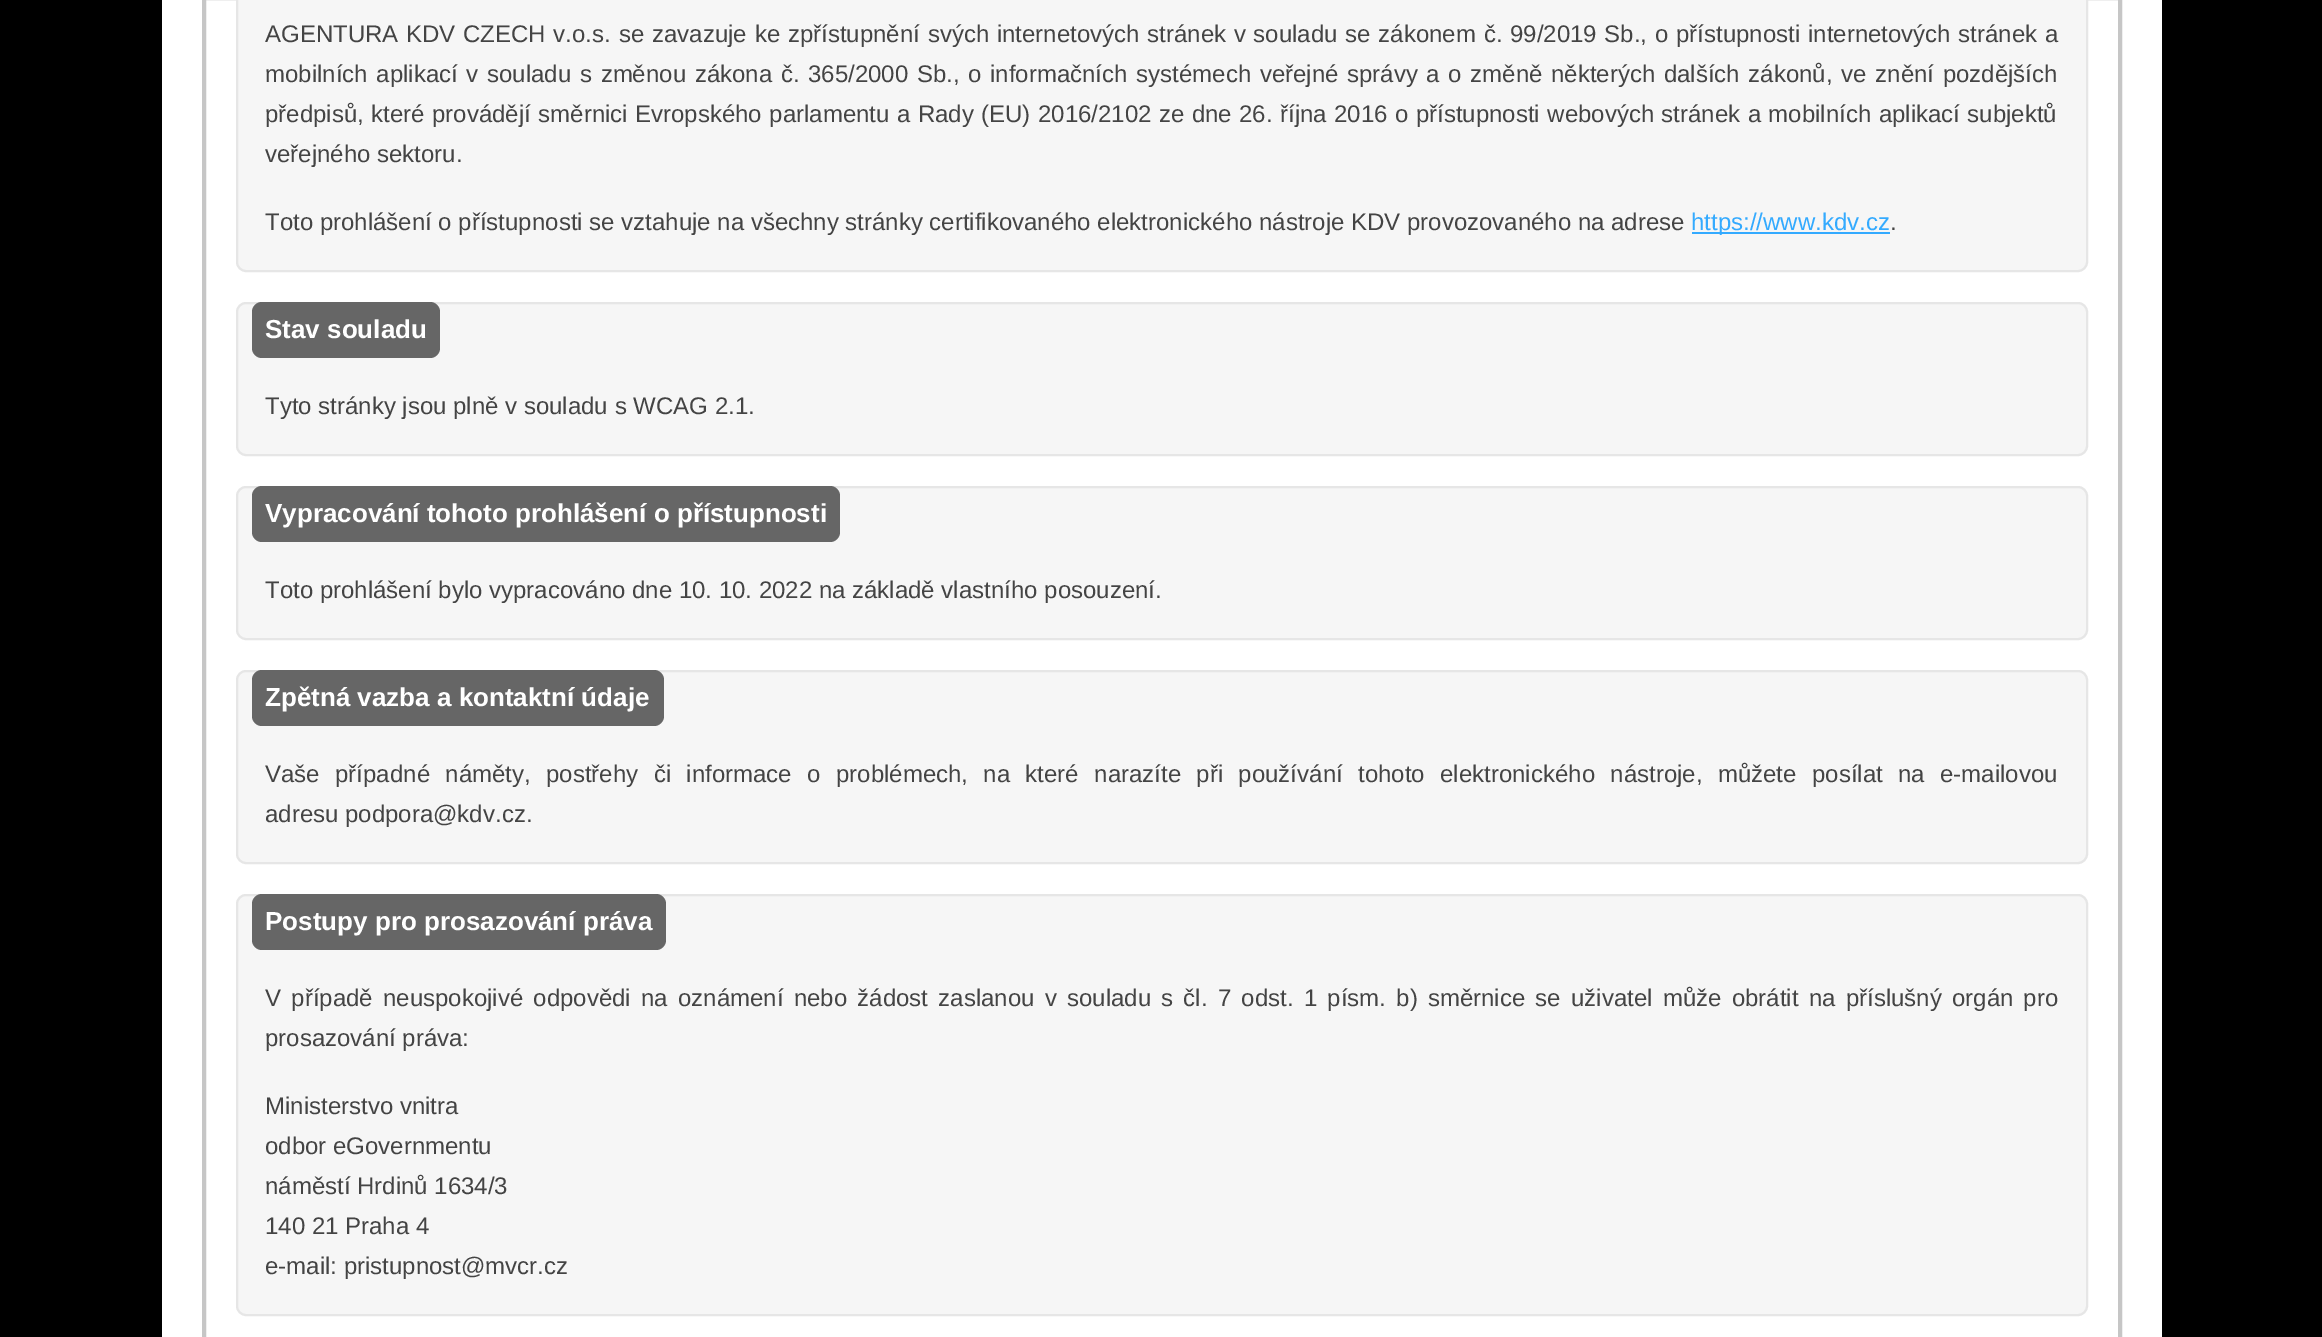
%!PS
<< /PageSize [2322 1337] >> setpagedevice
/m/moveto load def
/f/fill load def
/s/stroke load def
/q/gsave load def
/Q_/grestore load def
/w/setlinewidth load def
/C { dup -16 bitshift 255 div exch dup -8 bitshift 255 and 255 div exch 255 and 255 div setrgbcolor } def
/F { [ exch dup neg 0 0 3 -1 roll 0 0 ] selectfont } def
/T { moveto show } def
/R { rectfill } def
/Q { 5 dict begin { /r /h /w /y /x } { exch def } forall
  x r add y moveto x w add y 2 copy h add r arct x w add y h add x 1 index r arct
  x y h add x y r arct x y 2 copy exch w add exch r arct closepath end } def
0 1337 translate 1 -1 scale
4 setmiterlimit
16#000000 C
0 0 2322 1337 R
16#FFFFFF C
162 0 2000 1337 R
16#C6C6C6 C
4 w
204 -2 1916 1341 rectstroke
16#F6F6F6 C
237 -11 1850 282 9 Q q f Q_
16#E6E6E6 C
2 w
s
/LiberationSans-Regular 24 F
16#444444 C
265 42 m 1 0 32 (AGENTURA KDV CZECH v.o.s.) widthshow
619 42 m 1.1 0 32 (se zavazuje ke zpřístupnění svých internetových stránek v souladu se zákonem č. 99/2019 Sb., o přístupnosti internetových stránek a) widthshow
265 82 m 2 0 32 (mobilních aplikací v souladu s změnou zákona č. 365/2000 Sb., o informačních systémech veřejné správy a o změně některých dalších zákonů, ve znění pozdějších) widthshow
265 122 m .8 0 32 (předpisů, které provádějí směrnici Evropského parlamentu a Rady \(EU\) 2016/2102 ze dne 26. října 2016 o přístupnosti webových stránek a mobilních aplikací subjektů) widthshow
(veřejného sektoru.) 265 162 T
(Toto prohlášení o přístupnosti se vztahuje na všechny stránky certifikovaného elektronického nástroje KDV provozovaného na adrese) 265 230 T
16#33AAFF C
1692 232 198 2 R
(https://www.kdv.cz) 1691 230 T
16#444444 C
(.) 1890 230 T
16#F6F6F6 C
237 303 1850 152 9 Q q f Q_
16#E6E6E6 C
s
16#666666 C
252 302 188 56 10 Q f
/LiberationSans-Bold 26 F
16#FFFFFF C
(Stav souladu) 265 338 T
/LiberationSans-Regular 24 F
16#444444 C
(Tyto stránky jsou plně v souladu s WCAG 2.1.) 265 414 T
16#F6F6F6 C
237 487 1850 152 9 Q q f Q_
16#E6E6E6 C
s
16#666666 C
252 486 588 56 10 Q f
/LiberationSans-Bold 26 F
16#FFFFFF C
(Vypracování tohoto prohlášení o přístupnosti) 265 522 T
/LiberationSans-Regular 24 F
16#444444 C
(Toto prohlášení bylo vypracováno dne 10. 10. 2022 na základě vlastního posouzení.) 265 598 T
16#F6F6F6 C
237 671 1850 192 9 Q q f Q_
16#E6E6E6 C
s
16#666666 C
252 670 412 56 10 Q f
/LiberationSans-Bold 26 F
16#FFFFFF C
(Zpětná vazba a kontaktní údaje) 265 706 T
/LiberationSans-Regular 24 F
16#444444 C
265 782 m 8.75 0 32 (Vaše případné náměty, postřehy či informace o problémech, na které narazíte při používání tohoto elektronického nástroje, můžete posílat na e-mailovou) widthshow
(adresu podpora@kdv.cz.) 265 822 T
16#F6F6F6 C
237 895 1850 420 9 Q q f Q_
16#E6E6E6 C
s
16#666666 C
252 894 414 56 10 Q f
/LiberationSans-Bold 26 F
16#FFFFFF C
(Postupy pro prosazování práva) 265 930 T
/LiberationSans-Regular 24 F
16#444444 C
265 1006 m 3.6 0 32 (V případě neuspokojivé odpovědi na oznámení nebo žádost zaslanou v souladu s čl. 7 odst. 1 písm. b\) směrnice se uživatel může obrátit na příslušný orgán pro) widthshow
(prosazování práva:) 265 1046 T
(Ministerstvo vnitra) 265 1114 T
(odbor eGovernmentu) 265 1154 T
(náměstí Hrdinů 1634/3) 265 1194 T
(140 21 Praha 4) 265 1234 T
(e-mail: pristupnost@mvcr.cz) 265 1274 T
showpage
